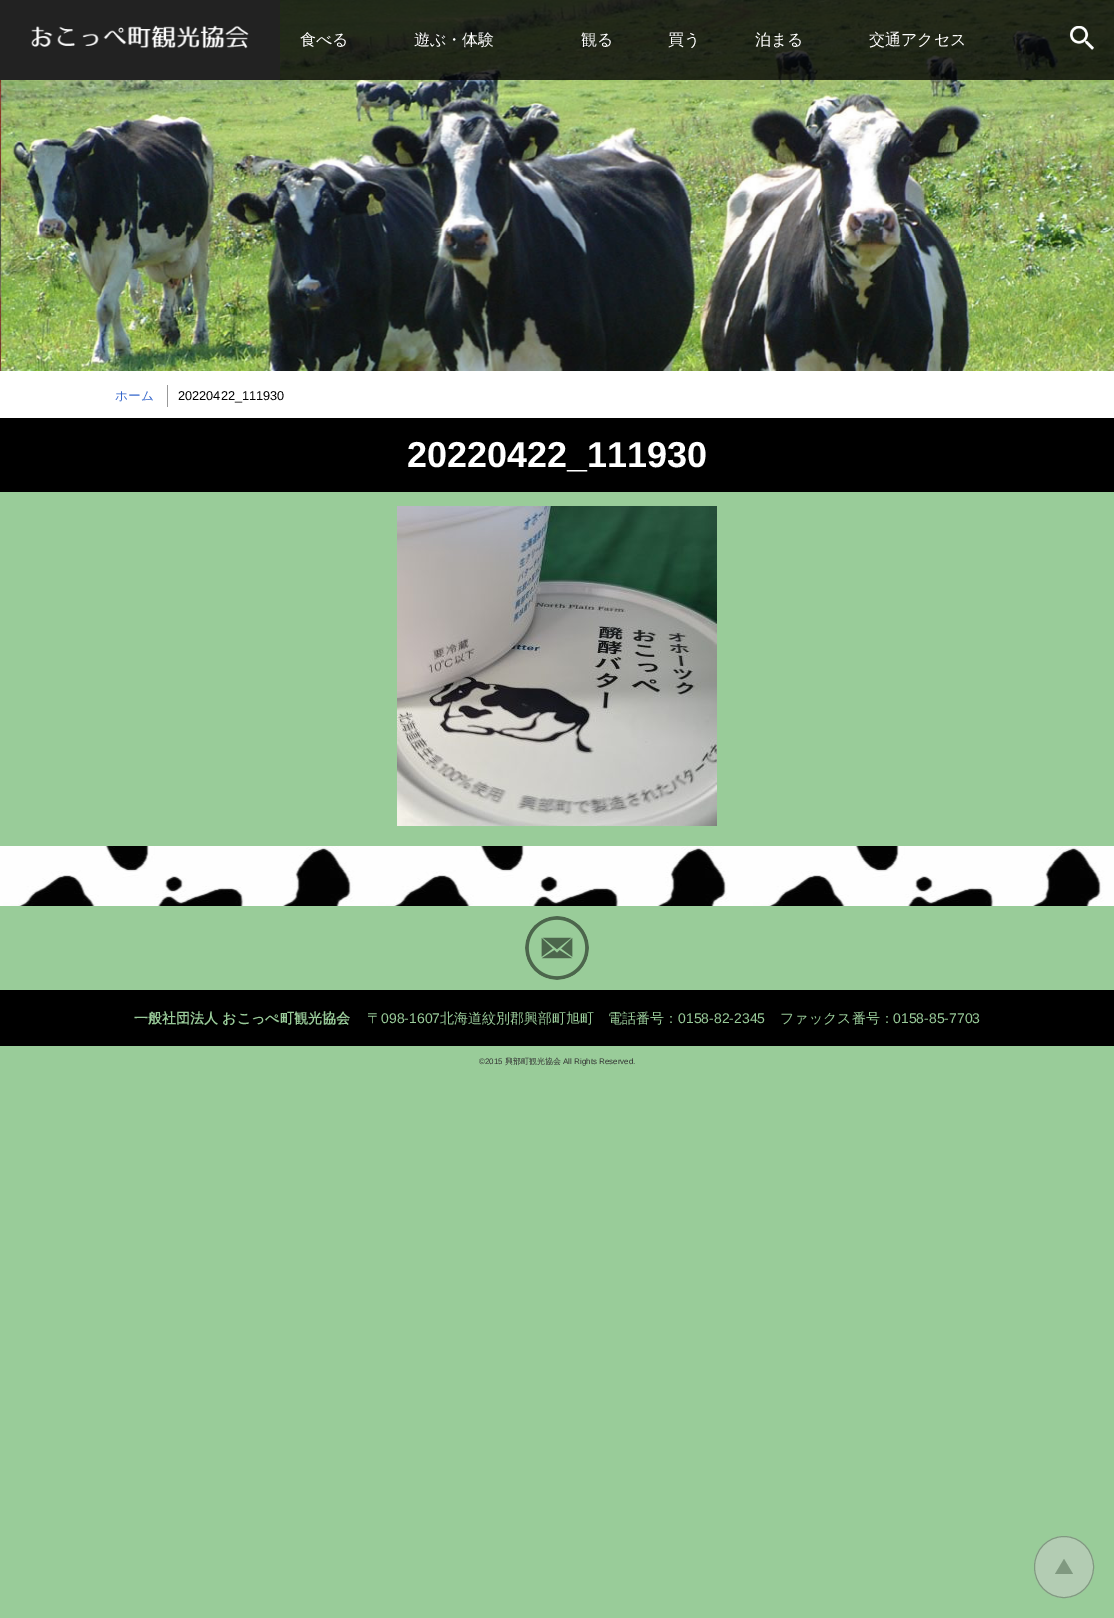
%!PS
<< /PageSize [1114 1618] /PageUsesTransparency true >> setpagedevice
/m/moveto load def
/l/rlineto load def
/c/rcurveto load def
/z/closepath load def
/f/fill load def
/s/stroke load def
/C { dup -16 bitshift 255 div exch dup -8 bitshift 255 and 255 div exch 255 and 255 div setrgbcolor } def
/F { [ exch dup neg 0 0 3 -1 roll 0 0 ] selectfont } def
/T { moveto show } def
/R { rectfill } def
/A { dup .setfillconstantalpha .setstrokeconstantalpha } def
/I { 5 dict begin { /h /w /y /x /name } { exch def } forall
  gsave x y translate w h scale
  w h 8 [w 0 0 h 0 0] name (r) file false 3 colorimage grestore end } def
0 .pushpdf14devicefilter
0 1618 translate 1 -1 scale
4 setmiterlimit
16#99CC99 C
0 0 1114 1618 R
(3.rgb) 0 0 1114 371 I
0.8 A
16#000000 C
280 0 834 80 R
1 A
16#222222 C
0 0 280 80 R
(1.rgb) 31 25 218 24 I
/WenQuanYiZenHei-Medium 16 F
16#FFFFFF C
(食べる) 300 45 T
(遊ぶ・体験) 414 45 T
(観る) 581 45 T
(買う) 668 45 T
(泊まる) 755 45 T
(交通アクセス) 869 45 T
(2.rgb) 1070 26 24 24 I
0 371 1114 47 R
/WenQuanYiZenHei-Medium 12.75 F
16#3365CB C
(ホーム) 115 400 T
16#999999 C
167 385 1 22 R
/LiberationSans-Regular 12.75 F
16#000000 C
(20220422_111930) 178 400 T
0 418 1114 74 R
/LiberationSans-Bold 36 F
16#FFFFFF C
(20220422_111930) 407 467 T
(4.rgb) 397 506 320 320 I
(5.rgb) 0 846 1114 60 I
(6.rgb) 525 916 64 64 I
16#000000 C
0 990 1114 56 R
/WenQuanYiZenHei-Bold 14 F
16#99CB99 C
(一般社団法人 おこっぺ町観光協会) 134 1023 T
/WenQuanYiZenHei-Medium 14 F
(〒) 367 1023 T
/LiberationSans-Regular 14 F
(098-1607) 381 1023 T
/WenQuanYiZenHei-Medium 14 F
(北海道紋別郡興部町旭町) 440 1023 T
(電話番号：) 608 1023 T
/LiberationSans-Regular 14 F
(0158-82-2345) 678 1023 T
/WenQuanYiZenHei-Medium 14 F
(ファックス番号：) 780 1023 T
/LiberationSans-Regular 14 F
(0158-85-7703) 893 1023 T
/LiberationSans-Regular 8 F
16#333333 C
(©2015) 479 1064 T
/WenQuanYiZenHei-Medium 8 F
(興部町観光協会) 505 1064 T
/LiberationSans-Regular 8 F
(All Rights Reserved.) 563 1064 T
16#B3CCB3 C
1064 1536 m 16.5 0 30 14 30 31 c 0 17 -13.5 31 -30 31 c -16.5 0 -30 -14 -30 -31 c 0 -17 13.5 -31 30 -31 c z f
16#809980 C
1064 1536.5 m 16.5 0 29.5 13.5 29.5 30.5 c 0 17 -13 30.5 -29.5 30.5 c -16.5 0 -29.5 -13.5 -29.5 -30.5 c 0 -17 13 -30.5 29.5 -30.5 c z s
1073 1574 m -18 0 l 9 -15 l z f
.poppdf14devicefilter showpage
